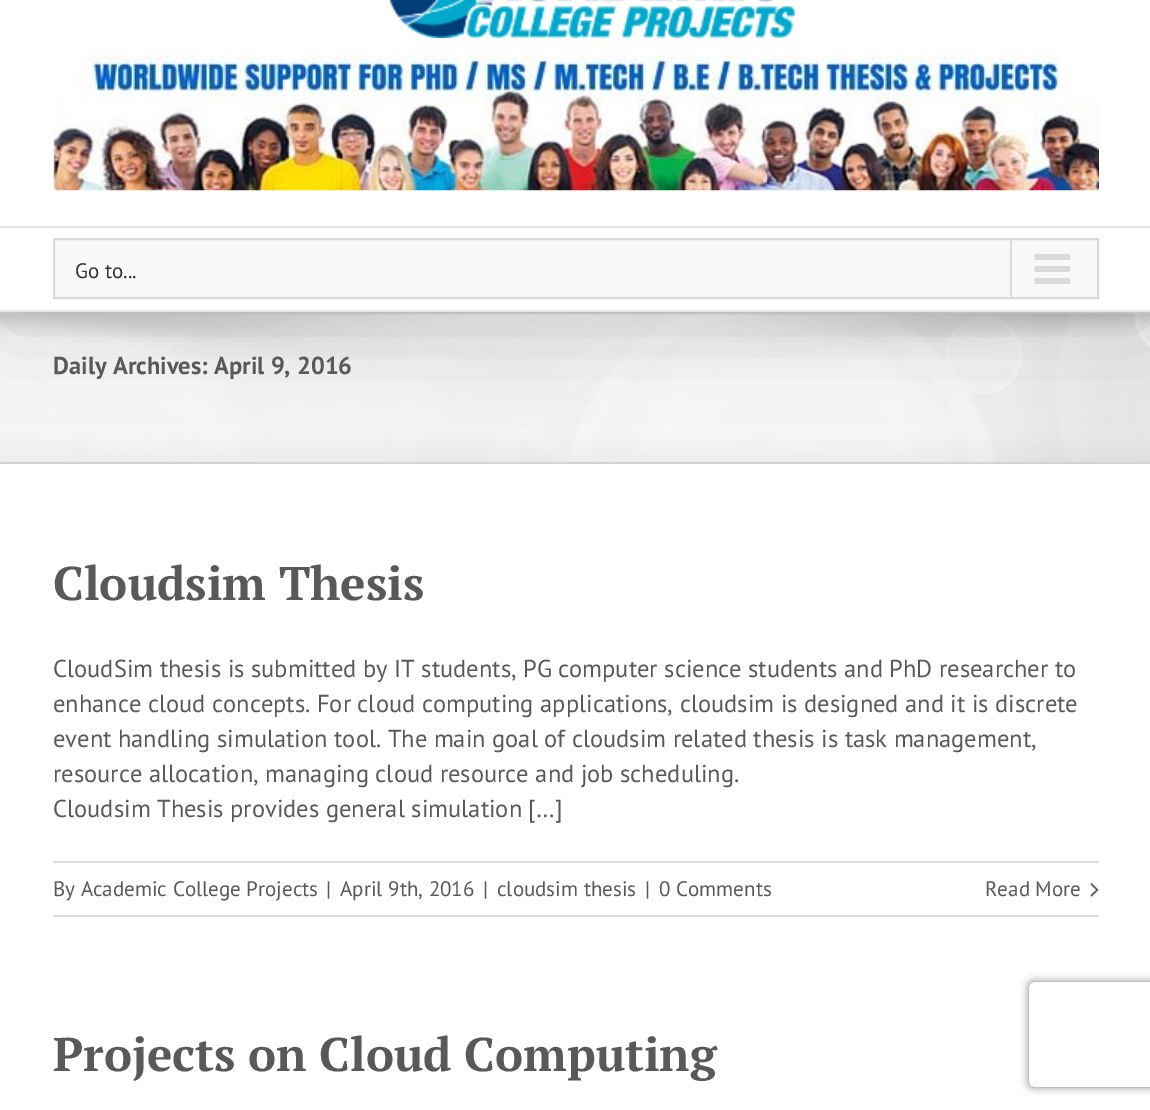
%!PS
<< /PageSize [1150 1110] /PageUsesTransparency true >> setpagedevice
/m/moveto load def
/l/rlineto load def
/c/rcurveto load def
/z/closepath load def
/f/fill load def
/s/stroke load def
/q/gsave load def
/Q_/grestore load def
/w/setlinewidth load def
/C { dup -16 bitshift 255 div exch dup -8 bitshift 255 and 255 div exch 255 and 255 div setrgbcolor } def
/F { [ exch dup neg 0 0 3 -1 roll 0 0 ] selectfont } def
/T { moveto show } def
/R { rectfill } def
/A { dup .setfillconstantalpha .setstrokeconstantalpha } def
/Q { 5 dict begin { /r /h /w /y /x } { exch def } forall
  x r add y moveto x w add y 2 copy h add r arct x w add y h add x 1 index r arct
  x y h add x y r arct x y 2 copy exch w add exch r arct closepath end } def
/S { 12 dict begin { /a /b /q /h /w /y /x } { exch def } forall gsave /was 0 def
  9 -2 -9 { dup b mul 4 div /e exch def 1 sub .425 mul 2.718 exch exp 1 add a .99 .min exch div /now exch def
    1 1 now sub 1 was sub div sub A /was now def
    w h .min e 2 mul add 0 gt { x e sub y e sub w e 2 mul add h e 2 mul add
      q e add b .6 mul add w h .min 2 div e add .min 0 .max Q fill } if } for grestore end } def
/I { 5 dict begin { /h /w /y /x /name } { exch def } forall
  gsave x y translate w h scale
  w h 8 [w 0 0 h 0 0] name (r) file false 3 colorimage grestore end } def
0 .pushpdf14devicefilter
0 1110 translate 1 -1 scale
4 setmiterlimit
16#FFFFFF C
0 0 1150 1110 R
16#E5E5E5 C
0 226 1150 2 R
(1.rgb) 389 0 406 38 I
(2.rgb) 52 55 1047 136 I
0 310 1150 2 R
16#F9F9F9 C
54 239 m 1044 0 l 0 59 l -1044 0 l z q f Q_
16#DADADA C
2 w
s
1010 240 2 58 R
(3.rgb) 1034 254 37 30 I
16#F6F6F6 C
0 314 1150 148 R
(4.rgb) 0 314 1150 148 I
16#D2D3D4 C
0 312 1150 2 R
q
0 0 m 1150 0 l 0 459 l -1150 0 l z 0 -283 m 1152 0 l 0 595 l -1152 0 l z eoclip newpath
16#000000 C
4 -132 1144 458 0 44 .14 S
Q_
/PTSans-Regular 21 F
16#333333 C
(Go to...) 75 278 T
16#D2D3D4 C
0 462 1150 2 R
/PTSans-Bold 24.5 F
16#595959 C
(Daily Archives: April 9, 2016) 53 374 T
/PTSerif-Bold 47.25 F
(Cloudsim Thesis) 53 600 T
/PTSans-Regular 24.5 F
(CloudSim thesis is submitted by IT students, PG computer science students and PhD researcher to) 53 677 T
(enhance cloud concepts. For cloud computing applications, cloudsim is designed and it is discrete) 53 712 T
(event handling simulation tool. The main goal of cloudsim related thesis is task management,) 53 747 T
(resource allocation, managing cloud resource and job scheduling.) 53 782 T
(Cloudsim Thesis provides general simulation […]) 53 817 T
16#E0DEDE C
53 861 1046 2 R
53 915 1046 2 R
/PTSans-Regular 21 F
16#595959 C
(By Academic College Projects) 53 896 T
(|) 326 896 T
(April 9th, 2016) 340 896 T
(|) 483 896 T
(cloudsim thesis) 497 896 T
(|) 645 896 T
(0 Comments) 659 896 T
(Read More) 985 896 T
(5.rgb) 1090 883 9 14 I
/PTSerif-Bold 47.25 F
(Projects on Cloud Computing) 53 1071 T
q
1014 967 m 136 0 l 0 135 l -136 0 l z 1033 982 m 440 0 l 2 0 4 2 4 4 c 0 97 l 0 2 -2 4 -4 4 c -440 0 l -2 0 -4 -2 -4 -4 c 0 -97 l 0 -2 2 -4 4 -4 c z eoclip newpath
16#808080 C
1029 982 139 105 4 4.5 1 S
Q_
.poppdf14devicefilter showpage
